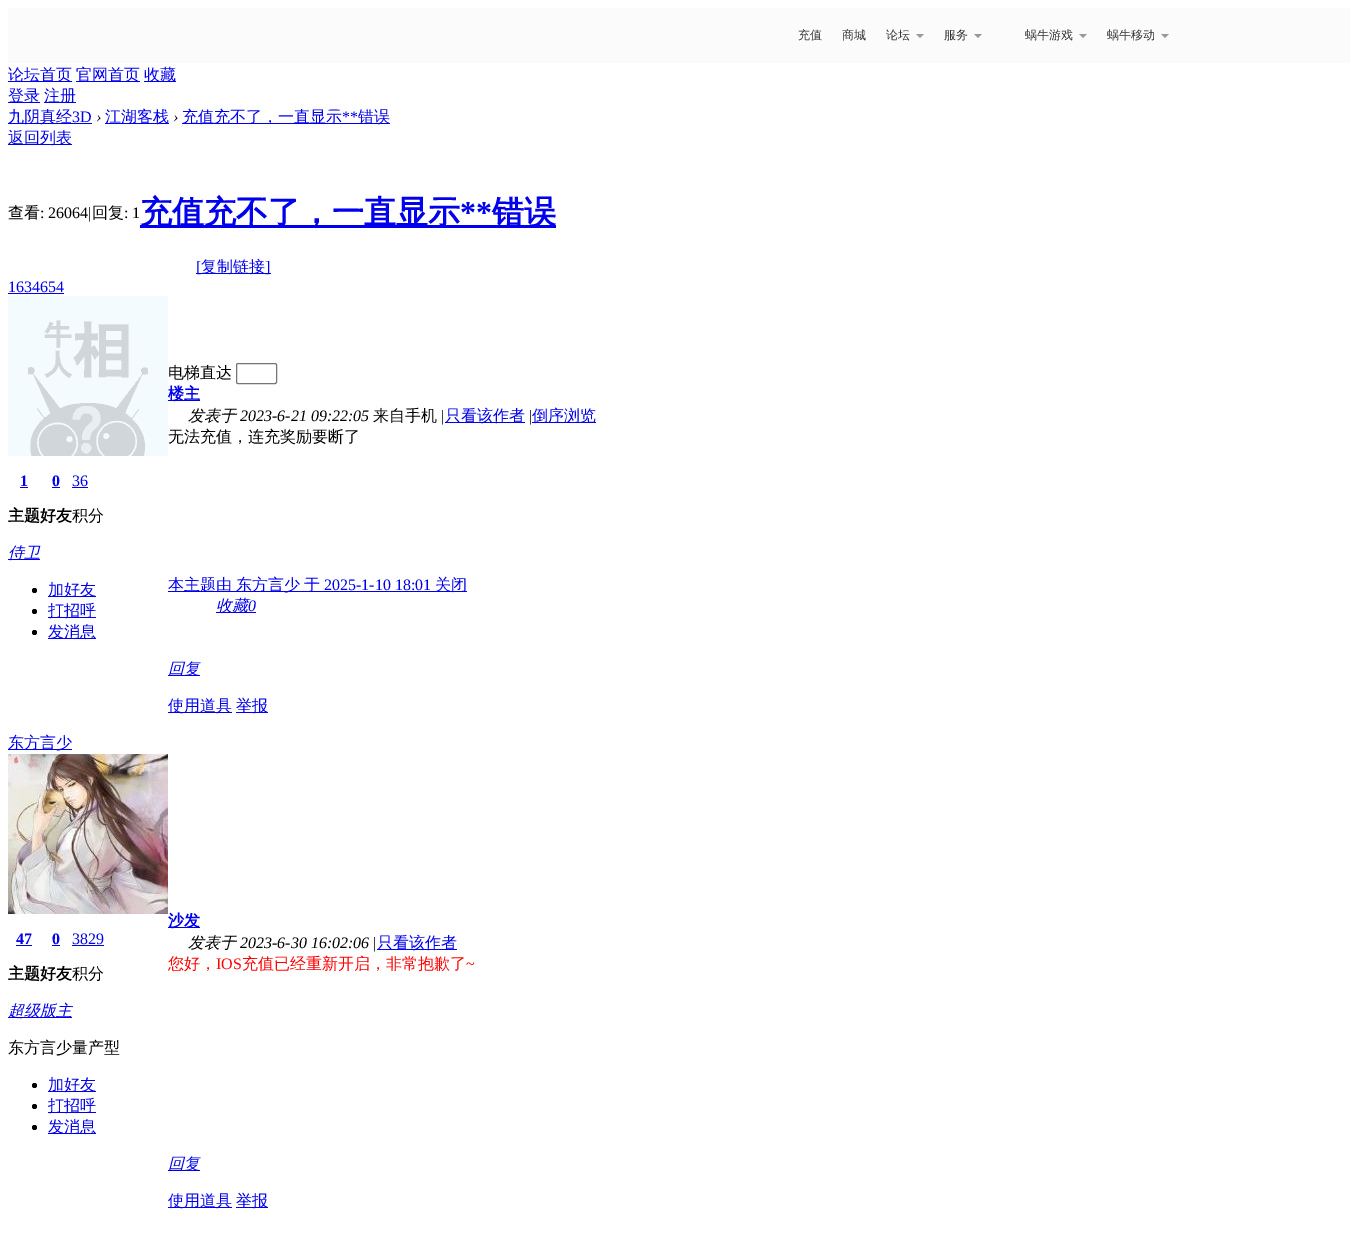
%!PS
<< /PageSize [1358 1235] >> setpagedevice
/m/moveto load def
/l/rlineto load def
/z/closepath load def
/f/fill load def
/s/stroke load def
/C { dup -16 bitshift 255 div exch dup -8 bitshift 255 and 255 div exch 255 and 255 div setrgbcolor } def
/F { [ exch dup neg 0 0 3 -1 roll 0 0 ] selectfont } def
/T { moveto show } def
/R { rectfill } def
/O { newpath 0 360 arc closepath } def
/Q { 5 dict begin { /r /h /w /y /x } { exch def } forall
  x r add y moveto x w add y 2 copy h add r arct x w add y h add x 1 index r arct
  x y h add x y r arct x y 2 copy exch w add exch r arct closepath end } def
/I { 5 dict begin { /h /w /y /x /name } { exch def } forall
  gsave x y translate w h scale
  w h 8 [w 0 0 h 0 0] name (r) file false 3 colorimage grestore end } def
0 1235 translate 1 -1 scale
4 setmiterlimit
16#FFFFFF C
0 0 1358 1235 R
16#FBFBFB C
8 8 1342 55 R
/WenQuanYiZenHei-Medium 12 F
16#333333 C
(充值) 798 39 T
(商城) 842 39 T
(论坛) 886 39 T
16#999999 C
916 34 m 8 0 l -4 4 l z f
16#333333 C
(服务) 944 39 T
16#999999 C
974 34 m 8 0 l -4 4 l z f
16#333333 C
(蜗牛游戏) 1025 39 T
16#999999 C
1079 34 m 8 0 l -4 4 l z f
16#333333 C
(蜗牛移动) 1107 39 T
16#999999 C
1161 34 m 8 0 l -4 4 l z f
16#0000EE C
8 81 64 1 R
/WenQuanYiZenHei-Medium 16 F
(论坛首页) 8 80 T
76 81 64 1 R
(官网首页) 76 80 T
144 81 32 1 R
(收藏) 144 80 T
8 102 32 1 R
(登录) 8 101 T
44 102 32 1 R
(注册) 44 101 T
8 123 84 1 R
(九阴真经) 8 122 T
/LiberationSerif-Regular 16 F
(3D) 72 122 T
/LiberationSerif-Italic 16 F
16#000000 C
(›) 96 122 T
16#0000EE C
105 123 64 1 R
/WenQuanYiZenHei-Medium 16 F
(江湖客栈) 105 122 T
/LiberationSerif-Italic 16 F
16#000000 C
(›) 173 122 T
16#0000EE C
182 123 208 1 R
/WenQuanYiZenHei-Medium 16 F
(充值充不了，一直显示) 182 122 T
/LiberationSerif-Regular 16 F
(**) 342 122 T
/WenQuanYiZenHei-Medium 16 F
(错误) 358 122 T
8 144 64 1 R
(返回列表) 8 143 T
16#000000 C
(查看) 8 218 T
/LiberationSerif-Regular 16 F
(: 26064|) 40 218 T
/WenQuanYiZenHei-Medium 16 F
(回复) 92 218 T
/LiberationSerif-Regular 16 F
(: 1) 124 218 T
16#0000EE C
140 225 416 3 R
/WenQuanYiZenHei-Bold 32 F
(充值充不了，一直显示) 140 223 T
/LiberationSerif-Bold 32 F
(**) 460 223 T
/WenQuanYiZenHei-Bold 32 F
(错误) 492 223 T
196 273 75 1 R
/LiberationSerif-Regular 16 F
([) 196 272 T
/WenQuanYiZenHei-Medium 16 F
(复制链接) 201 272 T
/LiberationSerif-Regular 16 F
(]) 265 272 T
(1634654) 8 292 T
8 293 56 1 R
(1.rgb) 8 296 160 160 I
/LiberationSerif-Bold 16 F
(1) 20 486 T
20 487 8 1 R
/WenQuanYiZenHei-Bold 16 F
16#000000 C
(主题好友) 8 521 T
/LiberationSerif-Bold 16 F
16#0000EE C
(0) 52 486 T
52 487 8 1 R
/LiberationSerif-Regular 16 F
(36) 72 486 T
72 487 16 1 R
/WenQuanYiZenHei-Medium 16 F
16#000000 C
(积分) 72 521 T
16#0000EE C
8 559 32 1 R
/WenQuanYiZenHei-MediumItalic 16 F
(侍卫) 8 558 T
16#000000 C
34.5 590.5 2.5 O f
16#0000EE C
48 596 48 1 R
/WenQuanYiZenHei-Medium 16 F
(加好友) 48 595 T
16#000000 C
34.5 611.5 2.5 O f
16#0000EE C
48 617 48 1 R
(打招呼) 48 616 T
16#000000 C
34.5 632.5 2.5 O f
16#0000EE C
48 638 48 1 R
(发消息) 48 637 T
16#000000 C
(电梯直达) 168 378 T
16#767676 C
236.5 363.5 40 20 1.5 Q s
16#0000EE C
168 400 32 1 R
/WenQuanYiZenHei-Bold 16 F
(楼主) 168 399 T
/WenQuanYiZenHei-MediumItalic 16 F
16#000000 C
(发表于) 188 421 T
/LiberationSerif-Italic 16 F
(2023-6-21 09:22:05) 240 421 T
/WenQuanYiZenHei-Medium 16 F
(来自手机) 373 421 T
/LiberationSerif-Regular 16 F
(|) 441 421 T
16#0000EE C
445 422 80 1 R
/WenQuanYiZenHei-Medium 16 F
(只看该作者) 445 421 T
/LiberationSerif-Regular 16 F
16#000000 C
(|) 529 421 T
16#0000EE C
532 422 64 1 R
/WenQuanYiZenHei-Medium 16 F
(倒序浏览) 532 421 T
16#000000 C
(无法充值，连充奖励要断了) 168 442 T
16#0000EE C
168 591 299 1 R
(本主题由) 168 590 T
(东方言少) 236 590 T
(于) 304 590 T
/LiberationSerif-Regular 16 F
(2025-1-10 18:01) 324 590 T
/WenQuanYiZenHei-Medium 16 F
(关闭) 435 590 T
216 612 32 1 R
/WenQuanYiZenHei-MediumItalic 16 F
(收藏) 216 611 T
/LiberationSerif-Italic 16 F
(0) 248 611 T
248 612 8 1 R
168 675 32 1 R
/WenQuanYiZenHei-MediumItalic 16 F
(回复) 168 674 T
168 712 64 1 R
/WenQuanYiZenHei-Medium 16 F
(使用道具) 168 711 T
236 712 32 1 R
(举报) 236 711 T
8 749 64 1 R
(东方言少) 8 748 T
(2.rgb) 8 754 160 160 I
/LiberationSerif-Bold 16 F
(47) 16 944 T
16 945 16 1 R
/WenQuanYiZenHei-Bold 16 F
16#000000 C
(主题好友) 8 979 T
/LiberationSerif-Bold 16 F
16#0000EE C
(0) 52 944 T
52 945 8 1 R
/LiberationSerif-Regular 16 F
(3829) 72 944 T
72 945 32 1 R
/WenQuanYiZenHei-Medium 16 F
16#000000 C
(积分) 72 979 T
16#0000EE C
8 1017 64 1 R
/WenQuanYiZenHei-MediumItalic 16 F
(超级版主) 8 1016 T
/WenQuanYiZenHei-Medium 16 F
16#000000 C
(东方言少量产型) 8 1053 T
34.5 1085.5 2.5 O f
16#0000EE C
48 1091 48 1 R
(加好友) 48 1090 T
16#000000 C
34.5 1106.5 2.5 O f
16#0000EE C
48 1112 48 1 R
(打招呼) 48 1111 T
16#000000 C
34.5 1127.5 2.5 O f
16#0000EE C
48 1133 48 1 R
(发消息) 48 1132 T
168 927 32 1 R
/WenQuanYiZenHei-Bold 16 F
(沙发) 168 926 T
/WenQuanYiZenHei-MediumItalic 16 F
16#000000 C
(发表于) 188 948 T
/LiberationSerif-Italic 16 F
(2023-6-30 16:02:06) 240 948 T
/LiberationSerif-Regular 16 F
(|) 373 948 T
16#0000EE C
377 949 80 1 R
/WenQuanYiZenHei-Medium 16 F
(只看该作者) 377 948 T
16#FF0000 C
(您好，) 168 969 T
/LiberationSerif-Regular 16 F
(IOS) 216 969 T
/WenQuanYiZenHei-Medium 16 F
(充值已经重新开启，非常抱歉了) 242 969 T
/LiberationSerif-Regular 16 F
(~) 466 969 T
16#0000EE C
168 1170 32 1 R
/WenQuanYiZenHei-MediumItalic 16 F
(回复) 168 1169 T
168 1207 64 1 R
/WenQuanYiZenHei-Medium 16 F
(使用道具) 168 1206 T
236 1207 32 1 R
(举报) 236 1206 T
showpage
